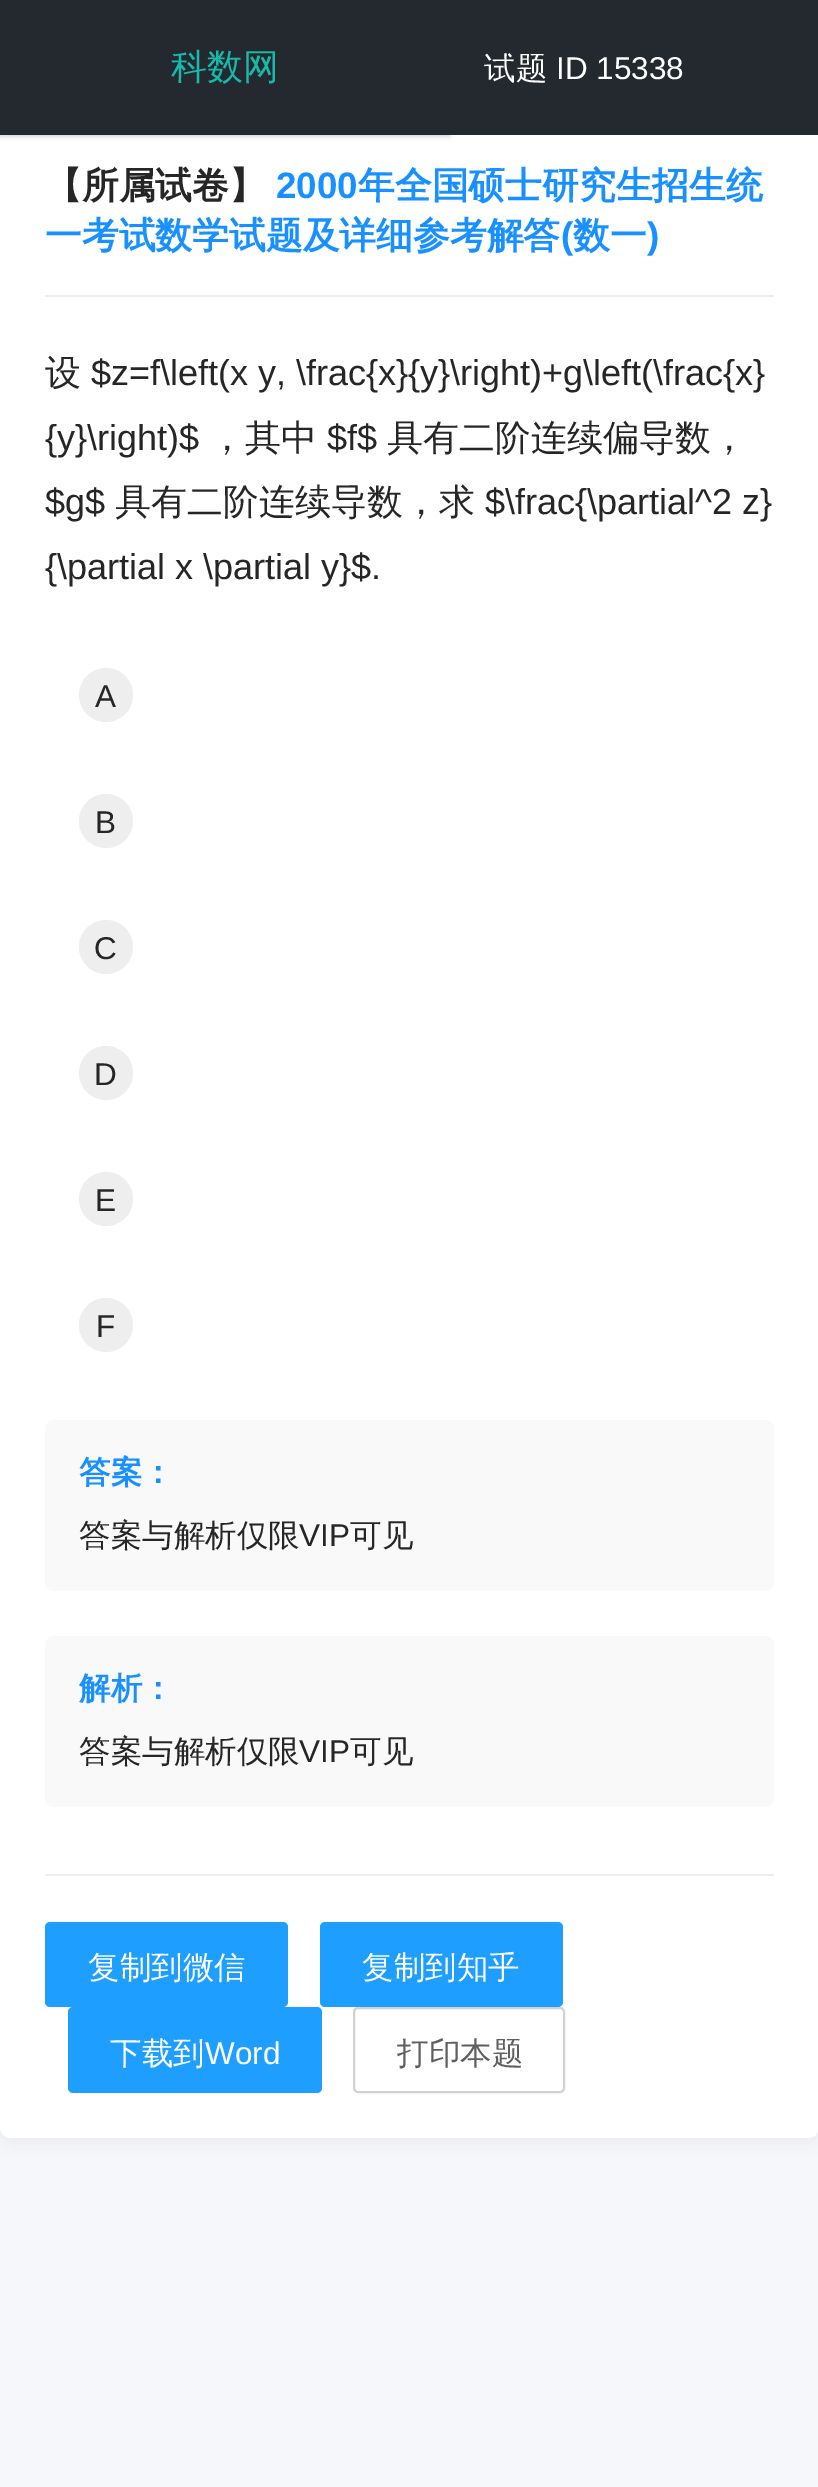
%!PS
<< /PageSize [818 2487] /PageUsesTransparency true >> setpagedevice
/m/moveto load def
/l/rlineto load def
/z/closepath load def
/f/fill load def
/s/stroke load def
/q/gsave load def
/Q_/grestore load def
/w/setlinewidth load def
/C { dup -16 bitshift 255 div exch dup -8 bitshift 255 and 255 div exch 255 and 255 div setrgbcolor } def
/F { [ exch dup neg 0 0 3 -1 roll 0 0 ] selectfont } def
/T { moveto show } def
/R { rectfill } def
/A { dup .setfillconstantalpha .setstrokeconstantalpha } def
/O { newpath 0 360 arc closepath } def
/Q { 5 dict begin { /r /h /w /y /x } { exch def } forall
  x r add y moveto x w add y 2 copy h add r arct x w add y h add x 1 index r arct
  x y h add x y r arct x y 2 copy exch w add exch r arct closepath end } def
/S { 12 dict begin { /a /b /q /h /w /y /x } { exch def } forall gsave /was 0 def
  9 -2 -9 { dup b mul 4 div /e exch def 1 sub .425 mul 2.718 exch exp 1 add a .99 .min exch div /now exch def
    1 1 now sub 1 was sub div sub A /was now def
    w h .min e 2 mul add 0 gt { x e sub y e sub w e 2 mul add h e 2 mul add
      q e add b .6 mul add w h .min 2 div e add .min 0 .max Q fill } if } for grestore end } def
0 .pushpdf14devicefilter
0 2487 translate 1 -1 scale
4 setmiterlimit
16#F5F7FA C
0 0 818 2487 R
16#000000 C
0 50 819 2092 11 11 .05 S
16#FFFFFF C
0 45 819 2093 11 Q f
16#23292E C
0 0 818 135 R
q
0 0 m 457 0 l 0 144 l -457 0 l z 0 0 m 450 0 l 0 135 l -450 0 l z eoclip newpath
16#000000 C
0 2 450 135 0 2 .15 S
Q_
/WenQuanYiZenHei-Medium 36 F
16#16BAAA C
(科数网) 171 79 T
/WenQuanYiZenHei-Medium 31.5 F
16#FFFFFF C
(试题) 484 79 T
/LiberationSans-Regular 31.5 F
(ID 15338) 556 79 T
16#EEEEEE C
45 295 729 2 R
/WenQuanYiZenHei-Bold 36.8 F
16#262626 C
(【所属试卷】) 45 198 T
/LiberationSans-Bold 36.8 F
16#1890FF C
(2000) 276 198 T
/WenQuanYiZenHei-Bold 36.8 F
(年全国硕士研究生招生统) 358 198 T
(一考试数学试题及详细参考解答) 45 248 T
/LiberationSans-Bold 36.8 F
(\() 561 248 T
/WenQuanYiZenHei-Bold 36.8 F
(数一) 573 248 T
/LiberationSans-Bold 36.8 F
(\)) 647 248 T
/WenQuanYiZenHei-Medium 36 F
16#262626 C
(设) 45 385 T
/LiberationSans-Regular 36 F
($z=f\\left\(x y, \\frac{x}{y}\\right\)+g\\left\(\\frac{x}) 91 385 T
({y}\\right\)$) 45 450 T
/WenQuanYiZenHei-Medium 36 F
(，其中) 209 450 T
/LiberationSans-Regular 36 F
($f$) 327 450 T
/WenQuanYiZenHei-Medium 36 F
(具有二阶连续偏导数，) 387 450 T
/LiberationSans-Regular 36 F
($g$) 45 514 T
/WenQuanYiZenHei-Medium 36 F
(具有二阶连续导数，求) 115 514 T
/LiberationSans-Regular 36 F
($\\frac{\\partial^2 z}) 485 514 T
({\\partial x \\partial y}$.) 45 579 T
16#EEEEEE C
106 695 27 O f
/LiberationSans-Regular 31.5 F
16#262626 C
(A) 95 707 T
16#EEEEEE C
106 821 27 O f
16#262626 C
(B) 95 833 T
16#EEEEEE C
106 947 27 O f
16#262626 C
(C) 94 959 T
16#EEEEEE C
106 1073 27 O f
16#262626 C
(D) 94 1085 T
16#EEEEEE C
106 1199 27 O f
16#262626 C
(E) 95 1211 T
16#EEEEEE C
106 1325 27 O f
16#262626 C
(F) 96 1337 T
16#F9F9F9 C
45 1420 729 171 9 Q f
/WenQuanYiZenHei-Bold 31.5 F
16#1890FF C
(答案：) 79 1483 T
/WenQuanYiZenHei-Medium 31.5 F
16#262626 C
(答案与解析仅限) 79 1546 T
/LiberationSans-Regular 31.5 F
(VIP) 299 1546 T
/WenQuanYiZenHei-Medium 31.5 F
(可见) 350 1546 T
16#F9F9F9 C
45 1636 729 171 9 Q f
/WenQuanYiZenHei-Bold 31.5 F
16#1890FF C
(解析：) 79 1699 T
/WenQuanYiZenHei-Medium 31.5 F
16#262626 C
(答案与解析仅限) 79 1762 T
/LiberationSans-Regular 31.5 F
(VIP) 299 1762 T
/WenQuanYiZenHei-Medium 31.5 F
(可见) 350 1762 T
16#EEEEEE C
45 1874 729 2 R
16#1E9FFF C
45 1922 243 85 5 Q f
16#FFFFFF C
(复制到微信) 88 1978 T
16#1E9FFF C
320 1922 243 85 5 Q f
16#FFFFFF C
(复制到知乎) 362 1978 T
16#1E9FFF C
68 2007 254 86 5 Q f
16#FFFFFF C
(下载到) 110 2064 T
/LiberationSans-Regular 31.5 F
(Word) 205 2064 T
16#D2D2D2 C
2 w
354 2008 210 84 4 Q s
/WenQuanYiZenHei-Medium 31.5 F
16#5F5F5F C
(打印本题) 397 2064 T
.poppdf14devicefilter showpage
